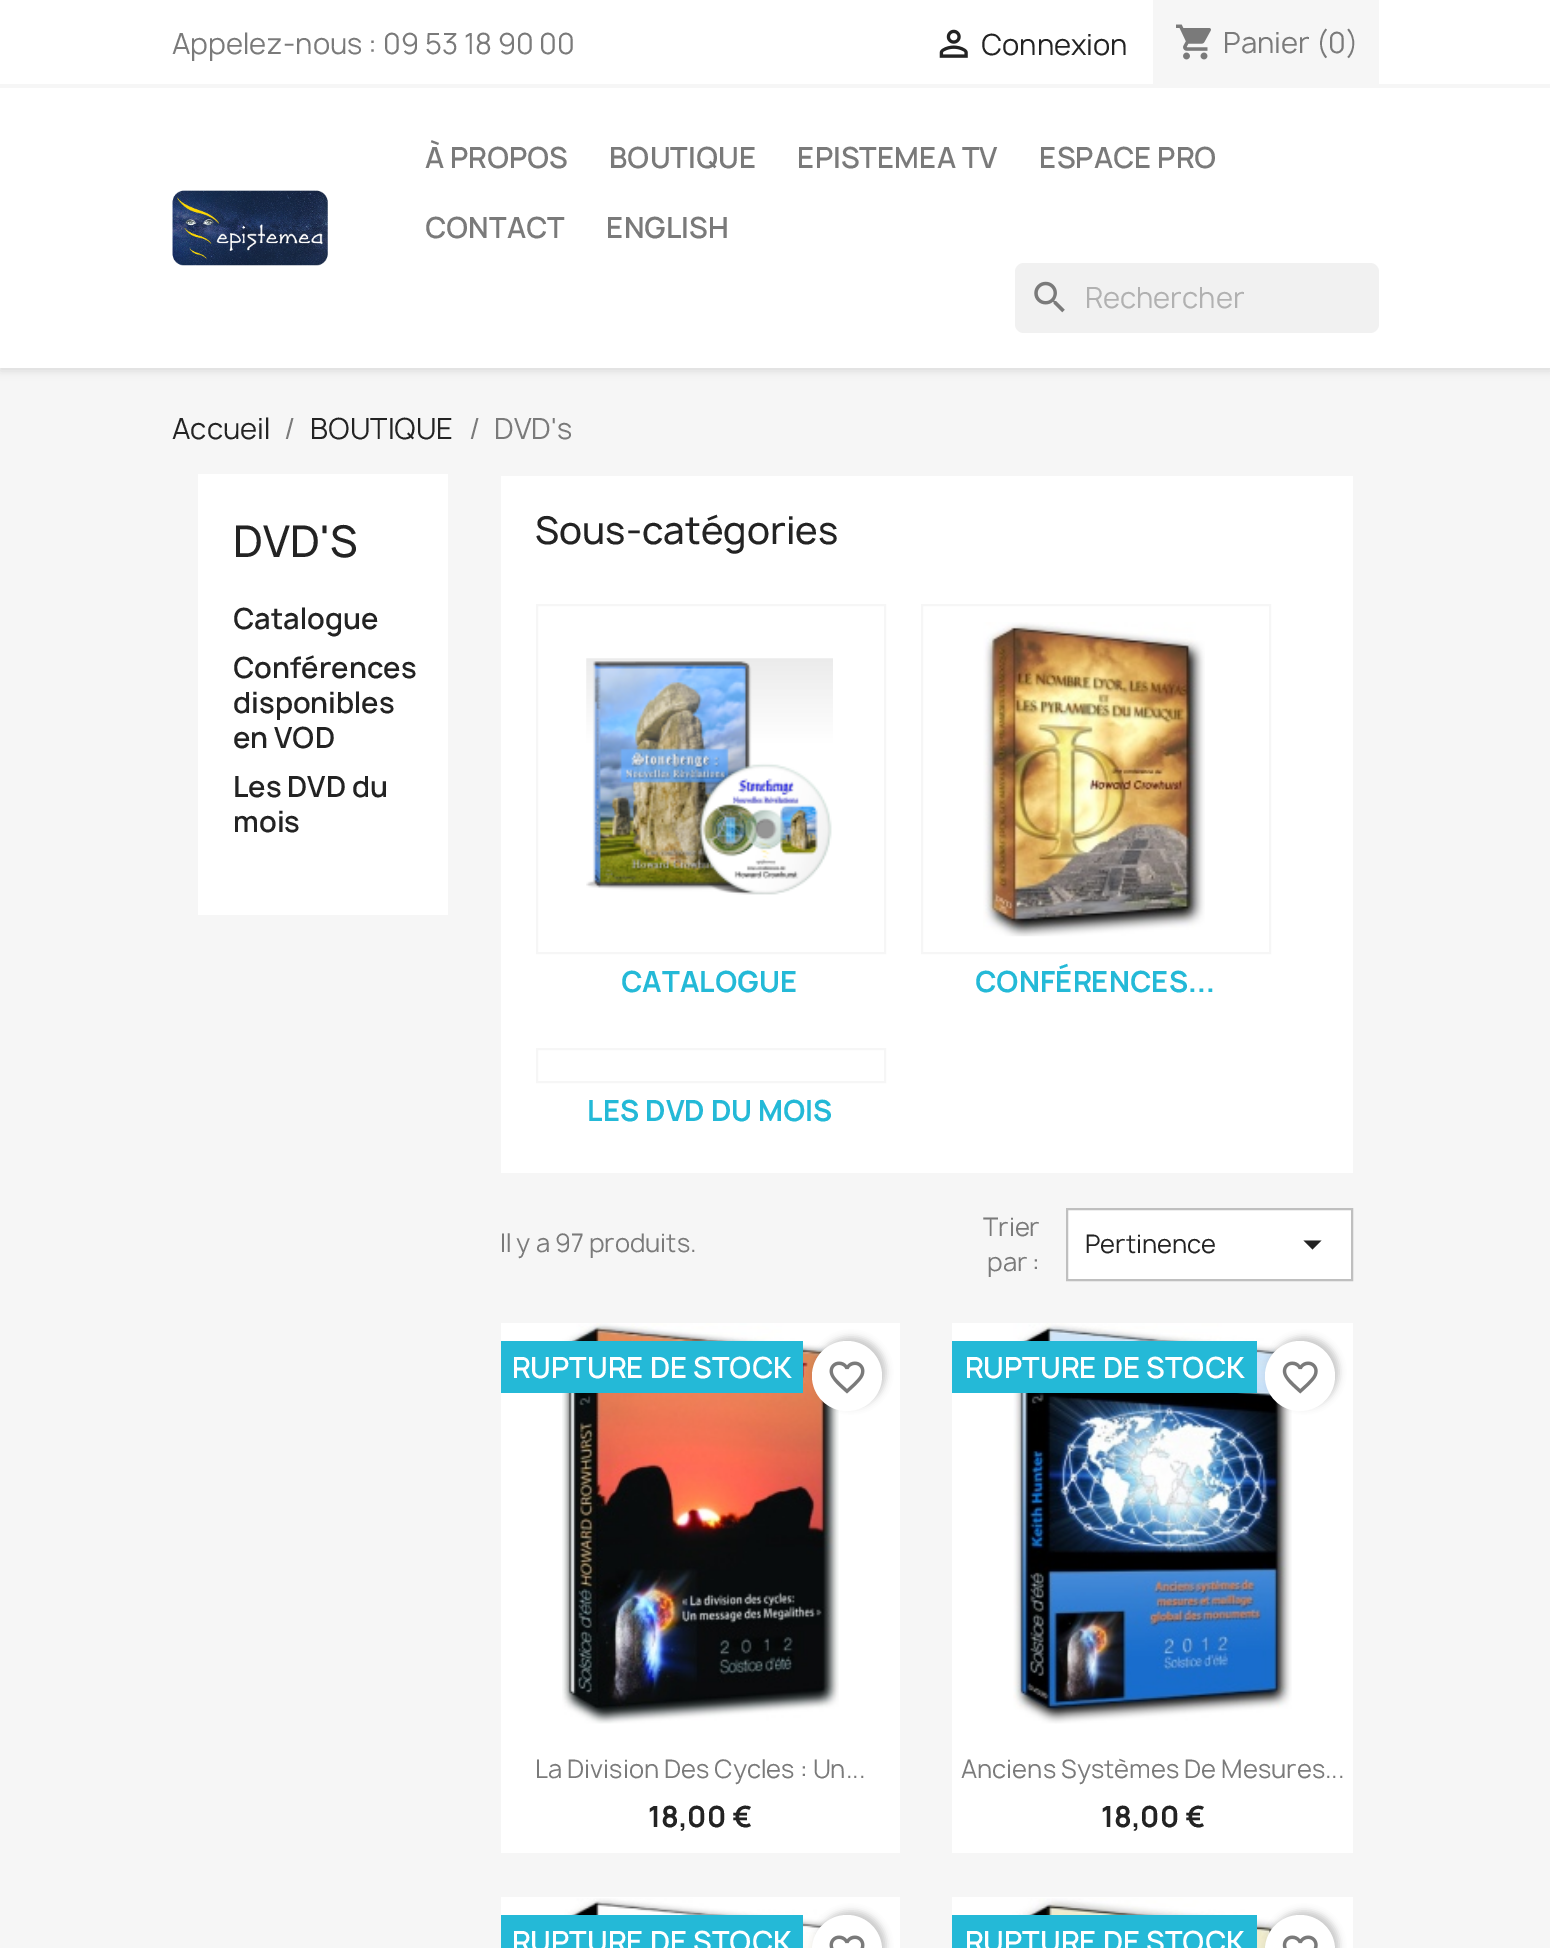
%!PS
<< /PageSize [1550 1948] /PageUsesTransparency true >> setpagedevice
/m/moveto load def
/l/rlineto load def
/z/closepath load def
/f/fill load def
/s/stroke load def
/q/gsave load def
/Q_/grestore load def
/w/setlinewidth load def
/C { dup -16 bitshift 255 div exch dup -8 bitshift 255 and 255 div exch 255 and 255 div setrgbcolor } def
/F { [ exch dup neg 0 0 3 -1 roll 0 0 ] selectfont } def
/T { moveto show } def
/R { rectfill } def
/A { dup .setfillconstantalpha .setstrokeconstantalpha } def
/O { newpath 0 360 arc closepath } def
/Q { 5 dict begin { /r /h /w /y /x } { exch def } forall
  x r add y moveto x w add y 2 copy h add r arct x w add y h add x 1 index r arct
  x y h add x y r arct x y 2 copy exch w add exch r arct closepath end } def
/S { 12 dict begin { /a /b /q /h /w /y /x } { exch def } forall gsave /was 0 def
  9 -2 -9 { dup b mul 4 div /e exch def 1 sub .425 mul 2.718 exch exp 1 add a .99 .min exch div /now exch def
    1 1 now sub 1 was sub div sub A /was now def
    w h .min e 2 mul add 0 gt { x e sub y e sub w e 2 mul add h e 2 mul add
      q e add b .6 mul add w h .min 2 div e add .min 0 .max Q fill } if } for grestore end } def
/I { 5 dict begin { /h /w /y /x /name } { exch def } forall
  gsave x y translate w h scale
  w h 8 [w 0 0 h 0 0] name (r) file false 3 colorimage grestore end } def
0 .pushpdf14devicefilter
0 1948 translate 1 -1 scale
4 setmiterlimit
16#F6F6F6 C
0 0 1550 1948 R
16#000000 C
0 4 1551 367 0 4.5 .11 S
16#FFFFFF C
0 0 1550 368 R
16#F6F6F6 C
0 84 1550 4 R
/Manrope-Regular 28 F
16#7A7A7A C
(Appelez-nous : 09 53 18 90 00) 172 54 T
(1.rgb) 939 29 29 29 I
16#232323 C
(Connexion) 981 55 T
16#F6F6F6 C
1153 0 226 84 R
(2.rgb) 1176 24 35 36 I
16#7A7A7A C
(Panier \(0\)) 1223 53 T
(3.rgb) 172 190 156 76 I
/Manrope-SemiBold 28 F
(À PROPOS) 425 168 T
(BOUTIQUE) 609 168 T
(EPISTEMEA TV) 797 168 T
(ESPACE PRO) 1039 168 T
(CONTACT) 425 238 T
(ENGLISH) 606 238 T
16#F1F1F1 C
1015 263 364 70 9 Q f
(4.rgb) 1034 281 31 32 I
/Manrope-Regular 28 F
16#B1B1B1 C
(Rechercher) 1085 308 T
16#232323 C
(Accueil) 172 439 T
16#7A7A7A C
(/) 284 439 T
16#232323 C
(BOUTIQUE) 310 439 T
16#7A7A7A C
(/) 469 439 T
(DVD's) 494 439 T
16#FFFFFF C
198 474 250 441 R
/Manrope-Medium 42 F
16#232323 C
(DVD'S) 233 557 T
/Manrope-SemiBold 28 F
(Catalogue) 233 629 T
(Conférences) 233 678 T
(disponibles) 233 713 T
(en VOD) 233 748 T
(Les DVD du) 233 797 T
(mois) 233 832 T
16#FFFFFF C
501 476 852 697 R
/Manrope-Medium 36.75 F
16#232323 C
(Sous-catégories) 535 544 T
16#F6F6F6 C
2 w
537 605 348 348 rectstroke
(5.rgb) 586 658 247 237 I
/Manrope-Bold 28 F
16#24B9D7 C
(CATALOGUE) 621 992 T
16#F6F6F6 C
922 605 348 348 rectstroke
(6.rgb) 983 622 222 315 I
16#24B9D7 C
(CONFÉRENCES...) 975 992 T
16#F6F6F6 C
537 1049 348 33 rectstroke
16#24B9D7 C
(LES DVD DU MOIS) 587 1121 T
/Manrope-Regular 24.5 F
16#7A7A7A C
(Il y a 97 produits.) 500 1252 T
(Trier) 983 1236 T
(par :) 987 1271 T
16#FFFFFF C
1067 1209 m 285 0 l 0 71 l -285 0 l z q f Q_
16#BFBFBF C
s
16#232323 C
(Pertinence) 1085 1253 T
1303.5 1240.5 m 18 0 l -9 9 l z f
16#FFFFFF C
501 1323 399 530 R
(7.rgb) 562 1323 277 401 I
16#000000 C
816 1337 70 70 35 3.5 .2 S
16#FFFFFF C
847 1376 35 O f
(8.rgb) 829 1361 36 33 I
16#24B9D7 C
501 1341 302 52 R
/Manrope-SemiBold 28 F
16#FFFFFF C
(RUPTURE DE STOCK) 512 1378 T
/Manrope-Regular 24.5 F
16#7A7A7A C
(La Division Des Cycles : Un...) 535 1778 T
/Manrope-Bold 28 F
16#232323 C
(18,00 €) 648 1827 T
16#FFFFFF C
952 1323 401 530 R
(9.rgb) 1013 1323 279 401 I
16#000000 C
1269 1337 70 70 35 3.5 .2 S
16#FFFFFF C
1300 1376 35 O f
(10.rgb) 1282 1361 36 33 I
16#24B9D7 C
952 1341 305 52 R
/Manrope-SemiBold 28 F
16#FFFFFF C
(RUPTURE DE STOCK) 965 1378 T
/Manrope-Regular 24.5 F
16#7A7A7A C
(Anciens Systèmes De Mesures...) 961 1778 T
/Manrope-Bold 28 F
16#232323 C
(18,00 €) 1101 1827 T
16#FFFFFF C
501 1897 399 51 R
(11.rgb) 562 1898 277 50 I
16#000000 C
816 1911 70 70 35 3.5 .2 S
16#FFFFFF C
812 1915 70 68 35 Q f
(12.rgb) 829 1935 36 13 I
16#24B9D7 C
501 1915 302 33 R
/Manrope-SemiBold 28 F
16#FFFFFF C
(RUPTURE DE STOCK) 512 1952 T
952 1897 401 51 R
(13.rgb) 1012 1898 279 50 I
16#000000 C
1269 1911 70 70 35 3.5 .2 S
16#FFFFFF C
1265 1915 70 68 35 Q f
(14.rgb) 1282 1935 36 13 I
16#24B9D7 C
952 1915 305 33 R
16#FFFFFF C
(RUPTURE DE STOCK) 965 1952 T
.poppdf14devicefilter showpage
